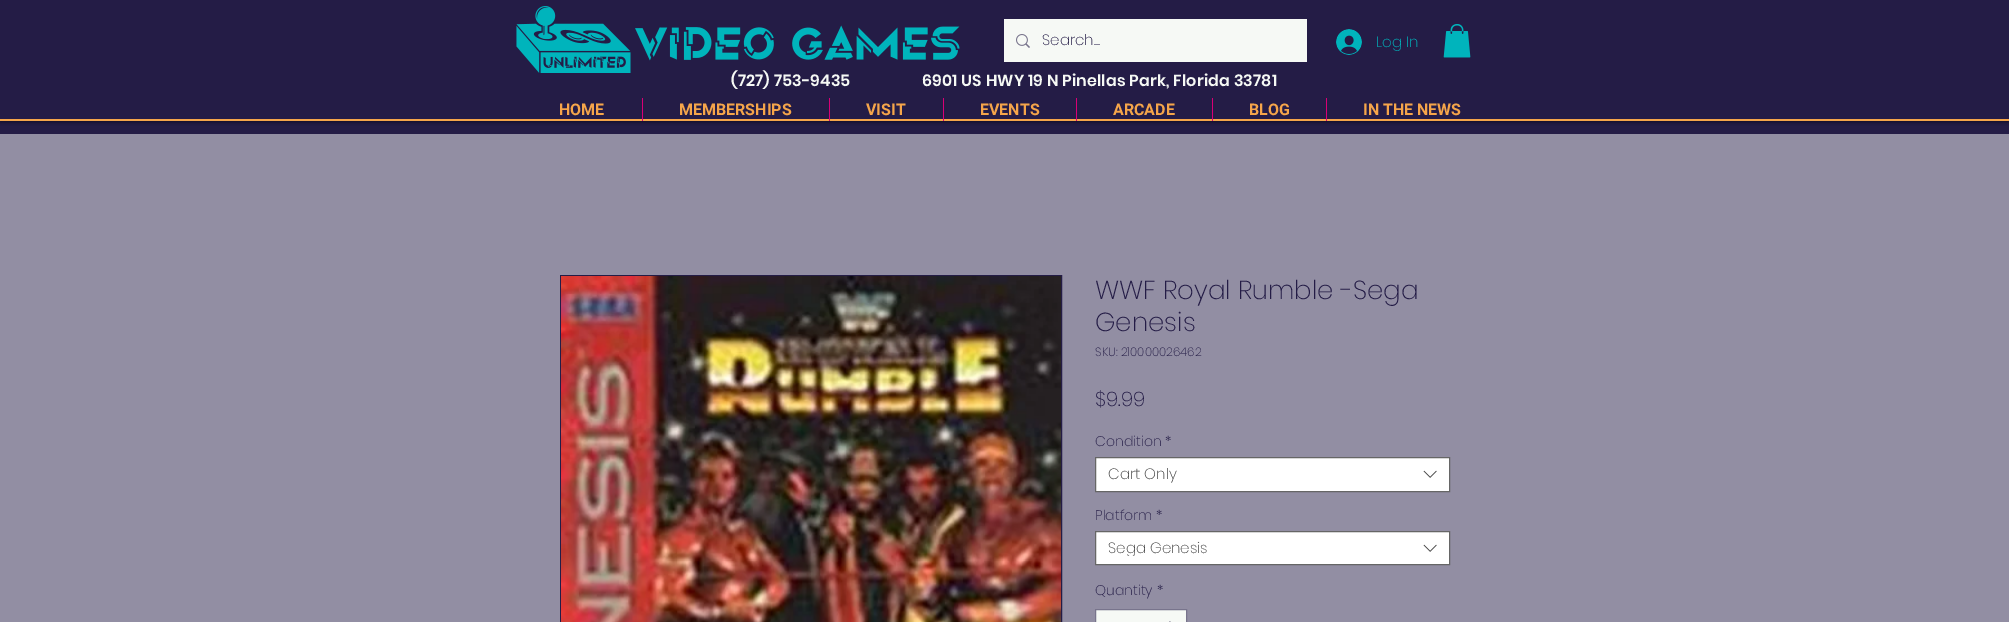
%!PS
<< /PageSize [2009 622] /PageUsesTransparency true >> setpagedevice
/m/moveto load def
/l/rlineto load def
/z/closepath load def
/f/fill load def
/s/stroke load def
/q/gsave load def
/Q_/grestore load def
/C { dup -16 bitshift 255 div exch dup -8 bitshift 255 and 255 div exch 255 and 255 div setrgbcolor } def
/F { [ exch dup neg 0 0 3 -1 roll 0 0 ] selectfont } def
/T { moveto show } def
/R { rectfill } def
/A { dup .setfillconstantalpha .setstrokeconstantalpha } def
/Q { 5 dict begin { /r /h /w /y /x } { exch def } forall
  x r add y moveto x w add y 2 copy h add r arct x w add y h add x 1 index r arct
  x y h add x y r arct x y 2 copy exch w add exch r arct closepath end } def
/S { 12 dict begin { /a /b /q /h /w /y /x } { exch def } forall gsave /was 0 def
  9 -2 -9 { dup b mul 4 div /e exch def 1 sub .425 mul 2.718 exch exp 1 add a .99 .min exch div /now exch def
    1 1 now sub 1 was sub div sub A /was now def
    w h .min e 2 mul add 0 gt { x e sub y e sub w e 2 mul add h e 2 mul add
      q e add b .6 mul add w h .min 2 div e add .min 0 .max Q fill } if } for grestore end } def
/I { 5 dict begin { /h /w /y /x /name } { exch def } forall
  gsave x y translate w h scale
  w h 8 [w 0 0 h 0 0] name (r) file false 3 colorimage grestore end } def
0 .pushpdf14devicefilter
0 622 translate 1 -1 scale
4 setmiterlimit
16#241C46 C
0 0 2009 622 R
q
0 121 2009 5 rectclip
16#000000 C
0 0 2009 121 0 2.5 .7 S
Q_
16#F5A54A C
0 119 2009 2 R
(1.rgb) 516 6 444 67 I
16#F6F9F5 C
1004 19 303 43 R
(2.rgb) 1016 34 14 14 I
/Poppins-ExtraLight 15 F
16#241C46 C
(Search...) 1042 45 T
(3.rgb) 1336 29 26 26 I
16#00B4BC C
(Log In) 1376 47 T
(4.rgb) 1443 24 28 34 I
/Poppins-SemiBold 16 F
16#F6F9F5 C
731 86 m .15 0 (\(727\) 753-9435) ashow
922 86 m .15 0 (6901 US HWY 19 N Pinellas Park, Florida 33781) ashow
/Roboto-Bold 16 F
16#F5A54A C
(HOME) 559 115 T
16#D90075 C
642 98 1 23 R
16#F5A54A C
(MEMBERSHIPS) 679 115 T
16#D90075 C
829 98 1 23 R
16#F5A54A C
(VISIT) 866 115 T
16#D90075 C
943 98 1 23 R
16#F5A54A C
(EVENTS) 980 115 T
16#D90075 C
1076 98 1 23 R
16#F5A54A C
(ARCADE) 1113 115 T
16#D90075 C
1212 98 1 23 R
16#F5A54A C
(BLOG) 1249 115 T
16#D90075 C
1326 98 1 23 R
16#F5A54A C
(IN THE NEWS) 1363 115 T
16#928EA3 C
0 134 2009 488 R
16#241C46 C
560.5 275.5 501 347 rectstroke
(5.rgb) 561 276 500 346 I
/Poppins-ExtraLight 26 F
(WWF Royal Rumble -Sega) 1095 299 T
(Genesis) 1095 331 T
/Poppins-ExtraLight 12 F
(SKU: 210000026462) 1095 356 T
/Poppins-ExtraLight 20 F
($9.99) 1095 406 T
/Poppins-ExtraLight 14 F
(Condition *) 1095 446 T
16#FFFFFF C
1095.5 457.5 m 354 0 l 0 34 l -354 0 l z q f Q_
16#666666 C
s
/Poppins-ExtraLight 15 F
16#444444 C
(Cart Only) 1108 479 T
(6.rgb) 1423 470 14 8 I
/Poppins-ExtraLight 14 F
16#241C46 C
(Platform *) 1095 520 T
16#FFFFFF C
1095.5 531.5 m 354 0 l 0 33 l -354 0 l z q f Q_
16#666666 C
s
q
1108 540 307 16 rectclip
/Poppins-ExtraLight 15 F
16#444444 C
(Sega Genesis) 1108 553 T
Q_
(6.rgb) 1423 544 14 8 I
16#241C46 C
(Quantity *) 1095 595 T
16#F6F9F5 C
1095.5 609.5 m 91 0 l 0 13 l -91 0 l z q f Q_
16#78748C C
s
(7.rgb) 1169 621 2 1 I
.poppdf14devicefilter showpage
